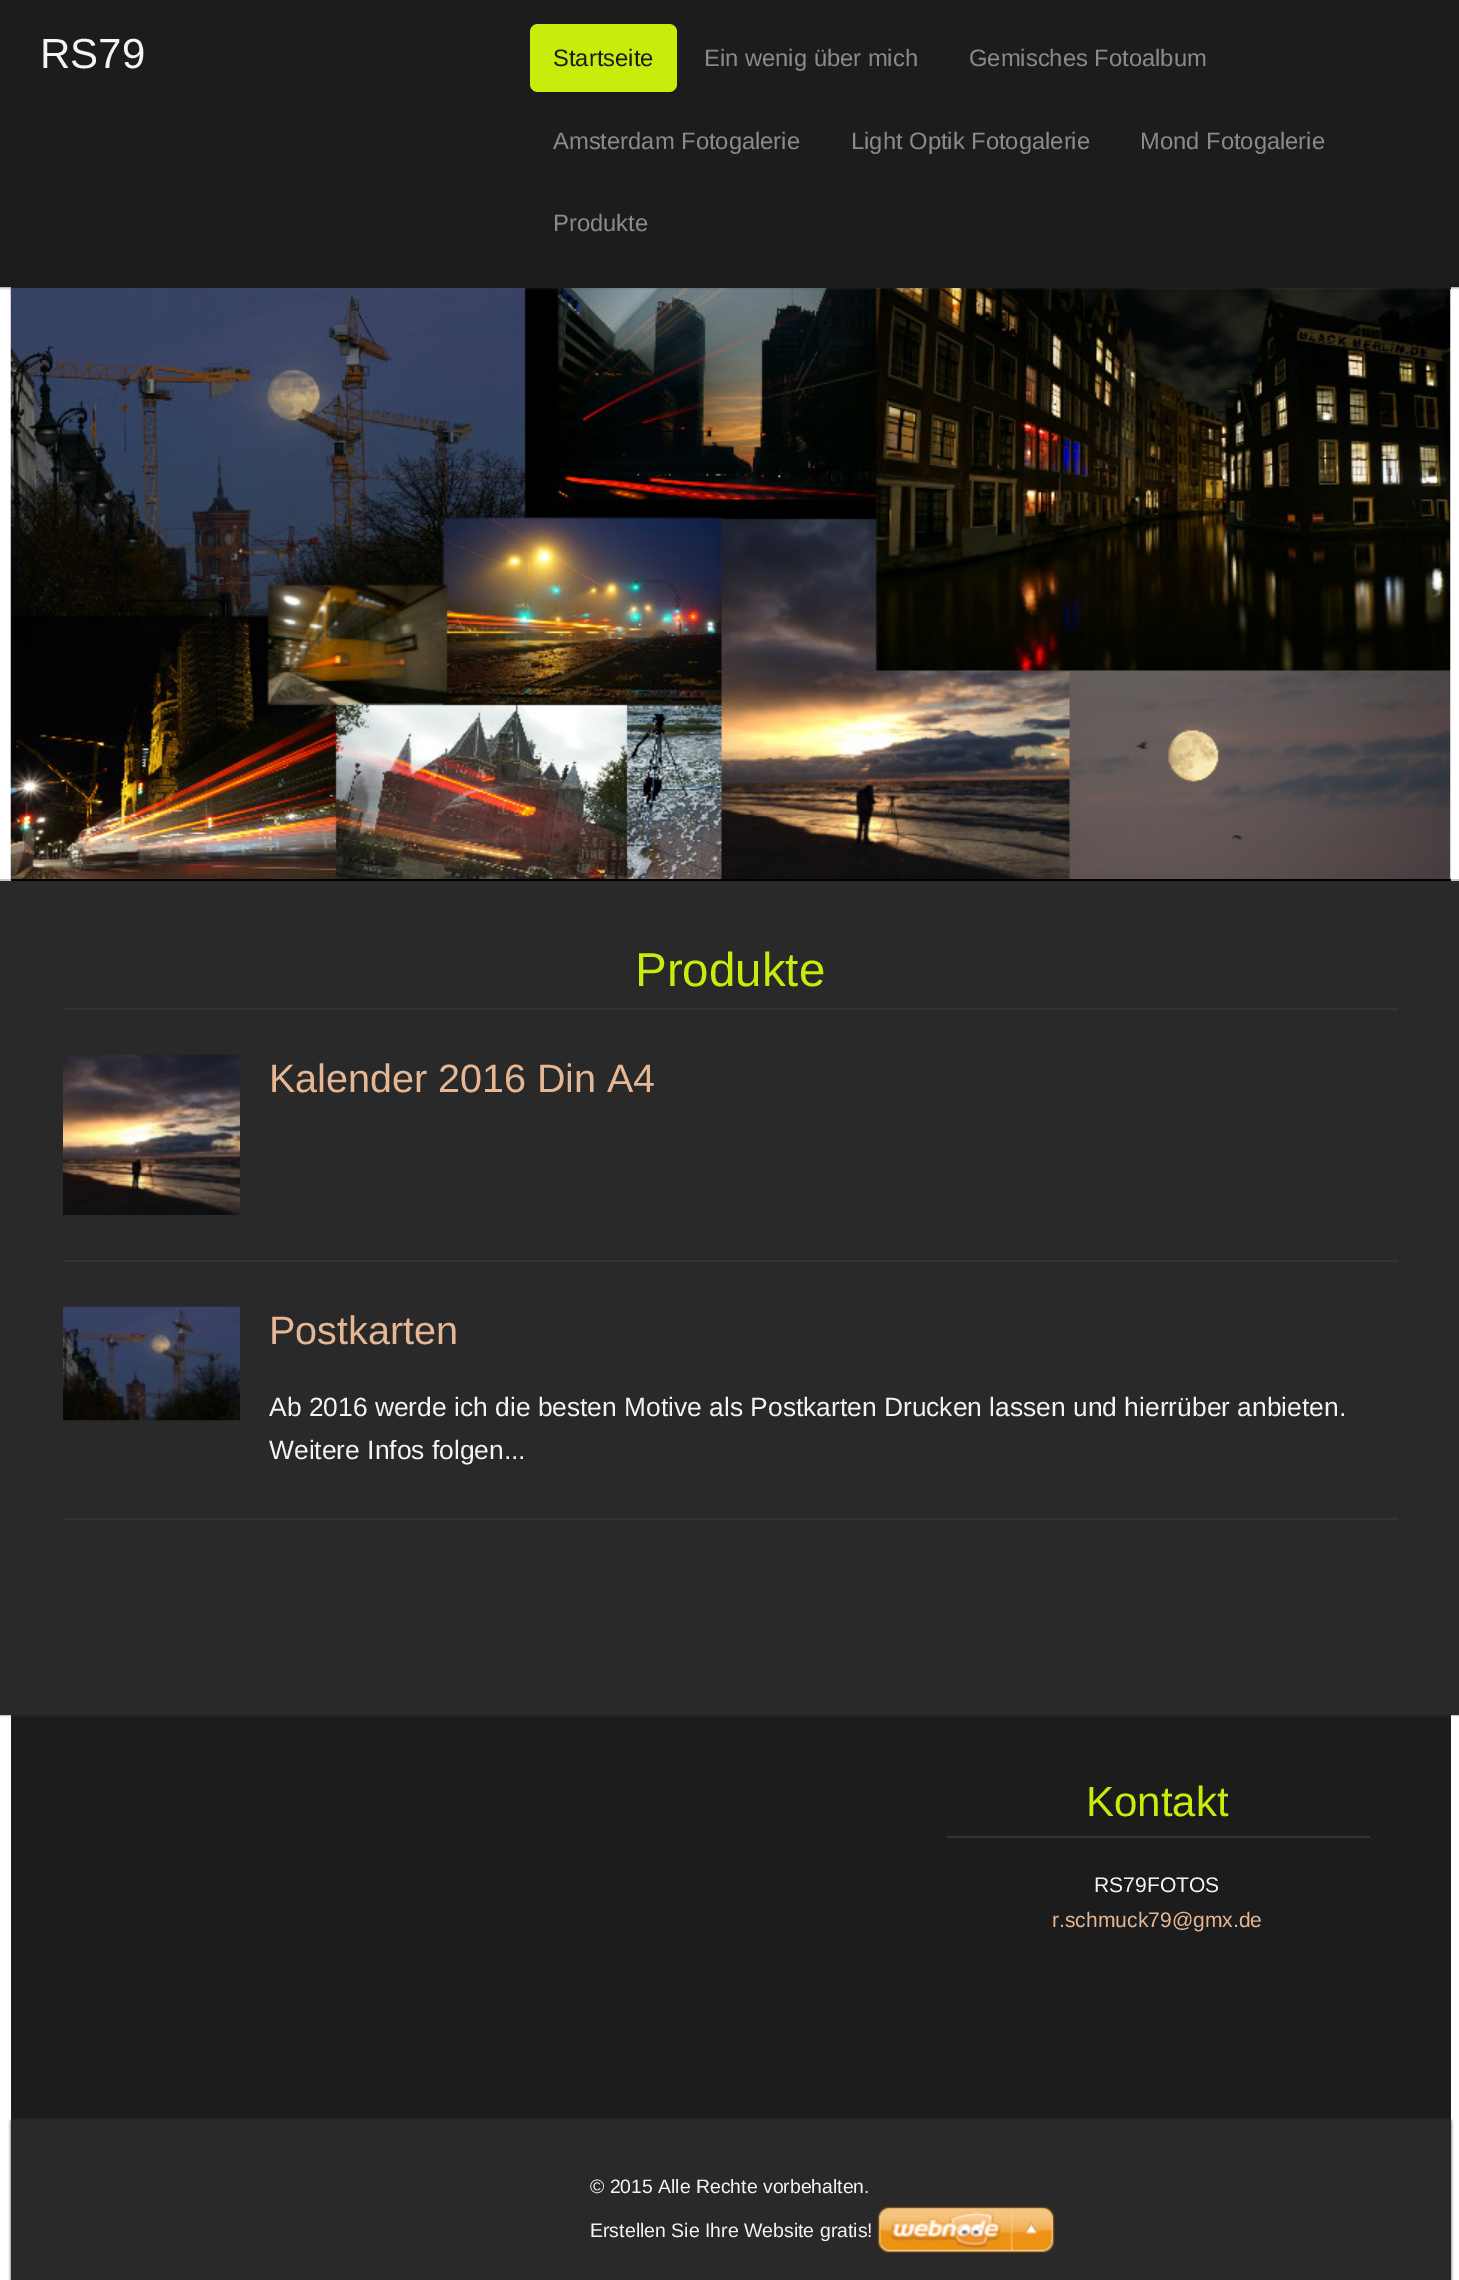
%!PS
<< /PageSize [1459 2280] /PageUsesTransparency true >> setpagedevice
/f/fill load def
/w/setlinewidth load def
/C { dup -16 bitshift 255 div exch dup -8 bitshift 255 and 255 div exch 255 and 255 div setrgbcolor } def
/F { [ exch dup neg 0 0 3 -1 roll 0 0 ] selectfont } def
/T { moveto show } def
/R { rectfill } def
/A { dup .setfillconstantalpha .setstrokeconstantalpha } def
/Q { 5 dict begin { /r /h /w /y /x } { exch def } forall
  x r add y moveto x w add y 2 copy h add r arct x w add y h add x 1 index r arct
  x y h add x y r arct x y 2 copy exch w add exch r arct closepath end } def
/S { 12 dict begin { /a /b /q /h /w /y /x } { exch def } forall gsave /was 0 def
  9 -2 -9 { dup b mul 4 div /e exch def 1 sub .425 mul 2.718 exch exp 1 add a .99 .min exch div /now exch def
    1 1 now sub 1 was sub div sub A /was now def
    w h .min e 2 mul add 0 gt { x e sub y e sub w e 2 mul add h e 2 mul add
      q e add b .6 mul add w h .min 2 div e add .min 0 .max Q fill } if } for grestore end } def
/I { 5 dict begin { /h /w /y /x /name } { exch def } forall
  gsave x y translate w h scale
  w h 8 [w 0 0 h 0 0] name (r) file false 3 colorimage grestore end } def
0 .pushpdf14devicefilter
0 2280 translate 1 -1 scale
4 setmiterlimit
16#FFFFFF C
0 0 1459 2280 R
16#000000 C
11 287 1440 2 R
(1.rgb) 10 288 1441 591 I
16#4C4C4C C
0 -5 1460 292 0 1.5 1 S
16#1C1C1C C
0 0 1459 287 R
/LiberationSans-Regular 42 F
16#F4F4F4 C
(RS79) 40 68 T
16#CAEC0D C
530 24 147 68 8 Q f
/LiberationSans-Regular 23.75 F
16#1C1C1C C
(Startseite) 553 66 T
16#8A8A8A C
(Ein wenig über mich) 704 66 T
(Gemisches Fotoalbum) 969 66 T
(Amsterdam Fotogalerie) 553 149 T
(Light Optik Fotogalerie) 851 149 T
(Mond Fotogalerie) 1140 149 T
(Produkte) 553 231 T
16#C6C6C6 C
2 w
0 880 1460 835 rectstroke
16#000000 C
11 879 1440 2 R
16#292929 C
0 881 1459 834 R
16#343434 C
63 1008 1335 2 R
/LiberationSans-Regular 47.5 F
16#CAEC0D C
(Produkte) 635 986 T
16#343434 C
63 1260 1335 2 R
(2.rgb) 63 1054 177 161 I
/LiberationSans-Regular 39.5 F
16#E6B795 C
(Kalender 2016 Din A4) 269 1092 T
16#343434 C
63 1518 1335 2 R
(3.rgb) 63 1306 177 115 I
16#E6B795 C
(Postkarten) 269 1344 T
/LiberationSans-Regular 26.4 F
16#F4F4F4 C
(Ab 2016 werde ich die besten Motive als Postkarten Drucken lassen und hierrüber anbieten.) 269 1416 T
(Weitere Infos folgen...) 269 1459 T
16#1C1C1C C
11 1717 1440 403 R
16#232323 C
11 1715 1440 2 R
16#343434 C
947 1836 423 2 R
/LiberationSans-Regular 42 F
16#CAEC0D C
(Kontakt) 1086 1816 T
/LiberationSans-Regular 21.1 F
16#F4F4F4 C
(RS79FOTOS) 1094 1892 T
16#E6B795 C
(r.schmuck79@gmx.de) 1052 1927 T
16#4C4C4C C
11 2121 1440 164 0 1.5 1 S
16#292929 C
11 2120 1440 160 R
/LiberationSans-Regular 19.4 F
16#F4F4F4 C
(© 2015 Alle Rechte vorbehalten.) 590 2193 T
/LiberationSans-Regular 19.5 F
(Erstellen Sie Ihre Website gratis!) 590 2237 T
(4.rgb) 877 2206 178 47 I
.poppdf14devicefilter showpage
